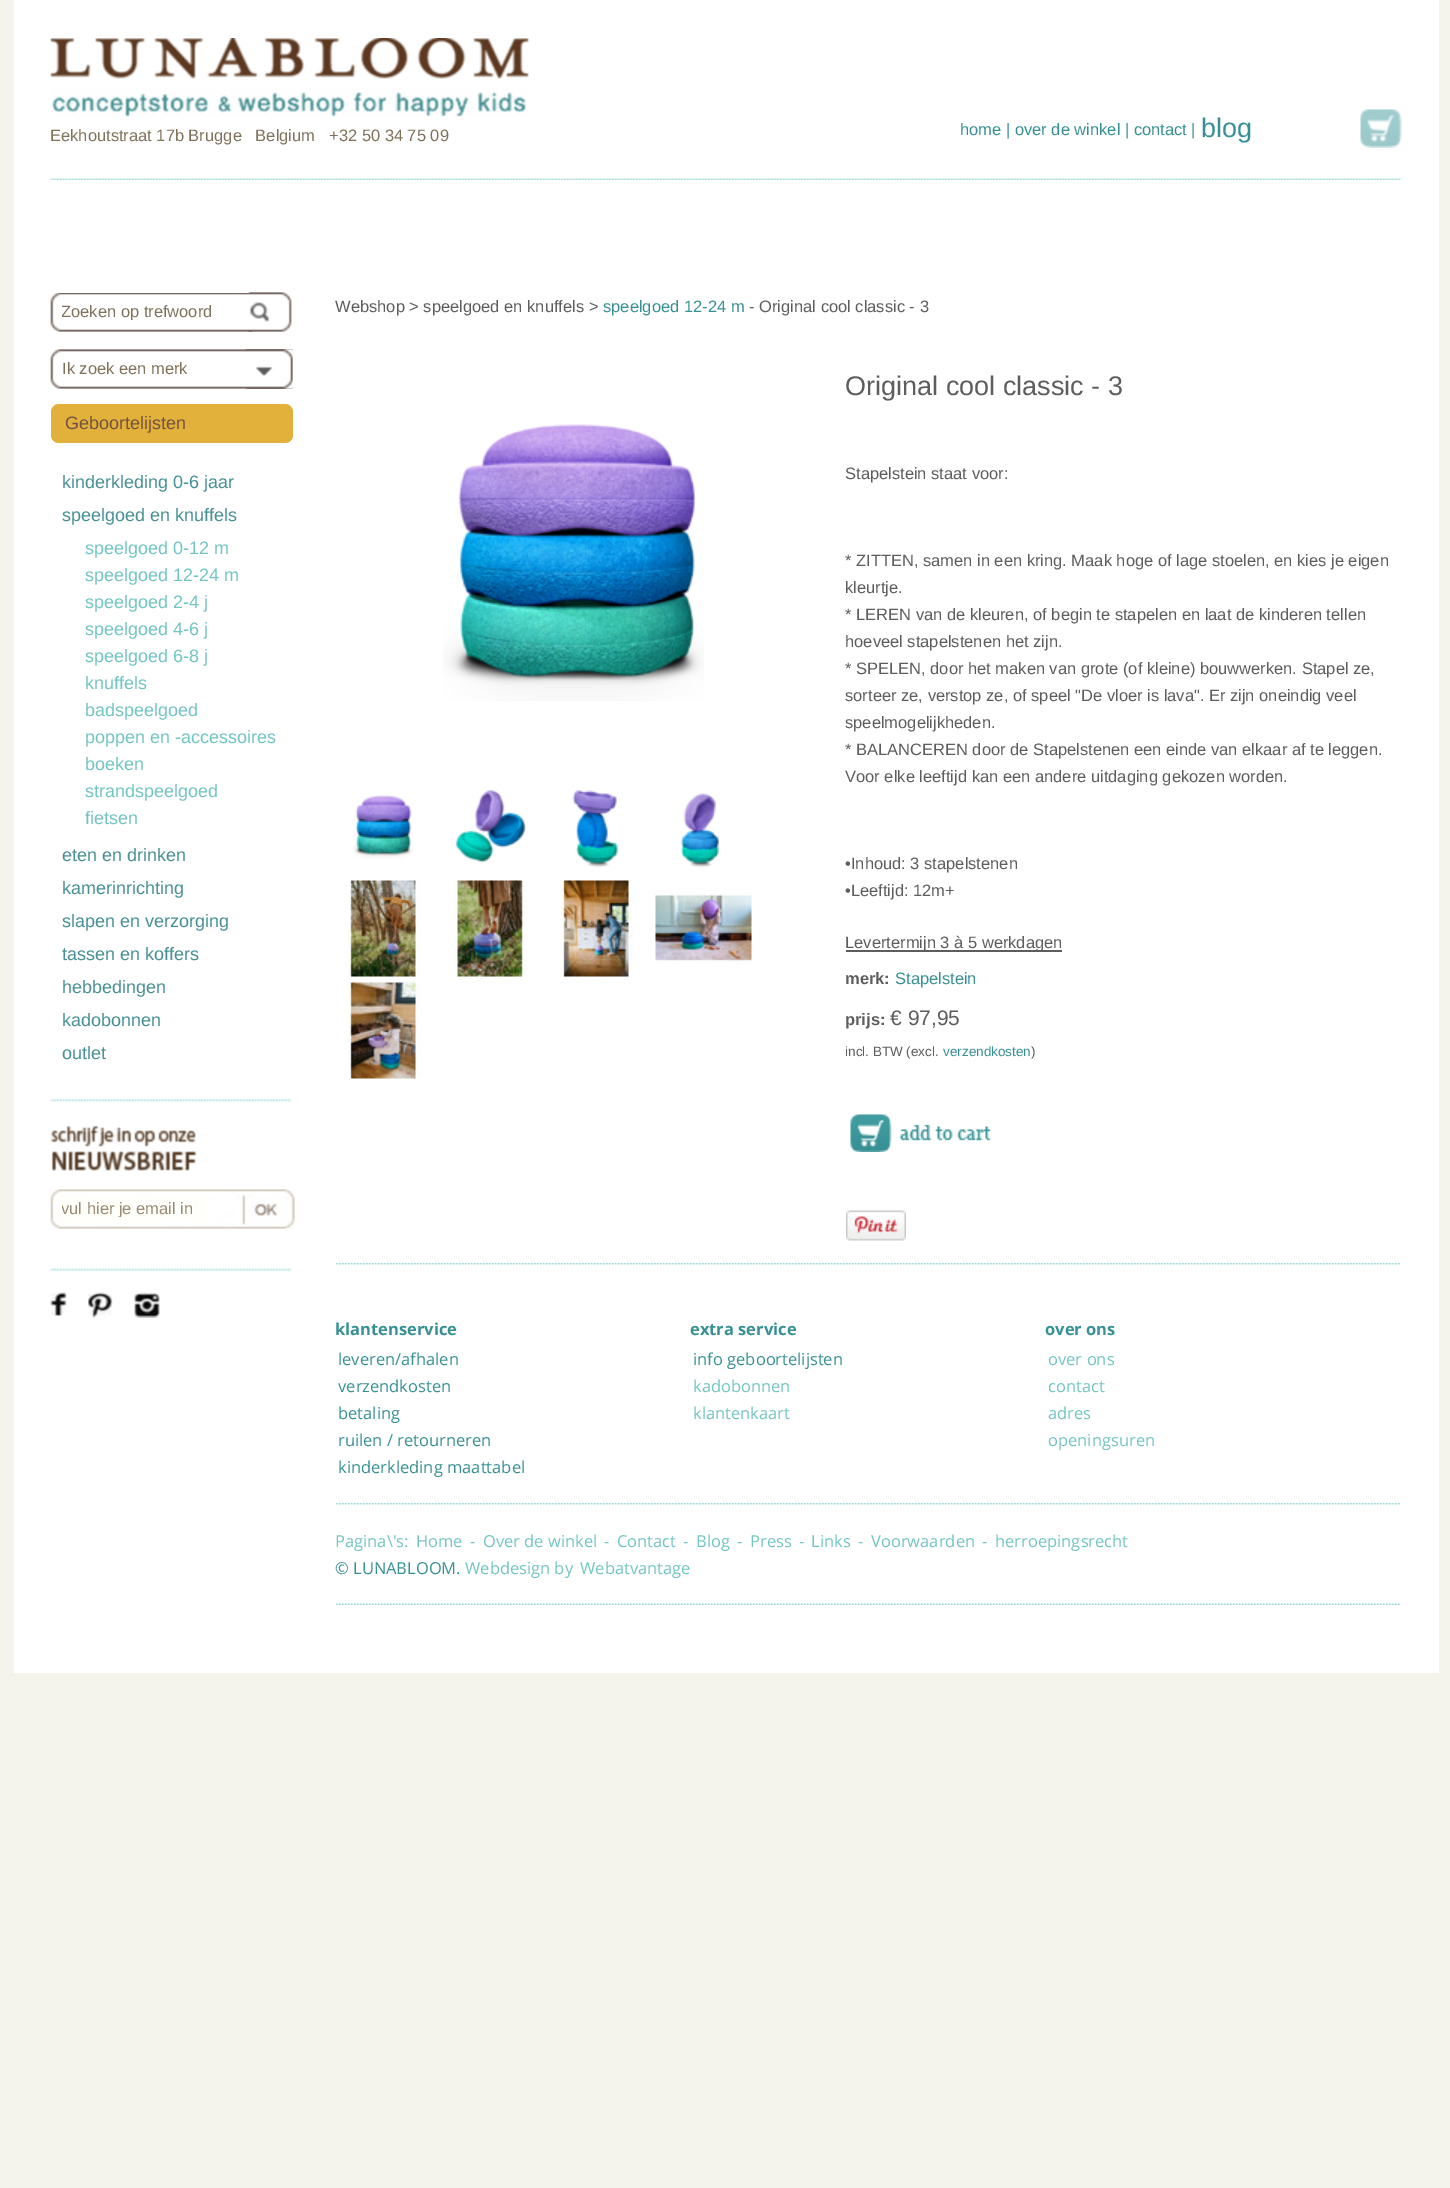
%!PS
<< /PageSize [1450 2188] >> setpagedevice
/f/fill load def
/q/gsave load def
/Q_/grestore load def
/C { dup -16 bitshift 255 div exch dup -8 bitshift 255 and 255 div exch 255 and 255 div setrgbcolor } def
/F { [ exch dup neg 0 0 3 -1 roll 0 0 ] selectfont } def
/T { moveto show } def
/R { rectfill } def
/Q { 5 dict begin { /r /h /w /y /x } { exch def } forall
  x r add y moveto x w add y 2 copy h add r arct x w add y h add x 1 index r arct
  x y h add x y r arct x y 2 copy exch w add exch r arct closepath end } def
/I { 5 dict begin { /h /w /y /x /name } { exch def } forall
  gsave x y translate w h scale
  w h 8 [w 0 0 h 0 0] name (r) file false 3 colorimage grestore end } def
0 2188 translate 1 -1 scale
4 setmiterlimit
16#F4F3EC C
0 0 1450 2188 R
16#FFFFFF C
14 0 1425 1673 R
(1.rgb) 50 178 1352 2 I
(2.rgb) 50 38 479 79 I
/LiberationSans-Regular 16.5 F
16#80715B C
(Eekhoutstraat 17b Brugge   Belgium) 50 141 T
(+32 50 34 75 09) 329 141 T
16#379093 C
(home | over de winkel | contact |) 960 135 T
/LiberationSans-Regular 27 F
(blog) 1201 137 T
(3.rgb) 1360 109 42 39 I
(4.rgb) 50 293 203 39 I
q
62 302 187 18 rectclip
/LiberationSans-Regular 16.5 F
16#80715B C
(Zoeken op trefwoord) 61 317 T
Q_
(5.rgb) 248 292 44 40 I
(6.rgb) 50 349 243 40 I
/LiberationSans-Regular 16.5 F
16#80715B C
(Ik zoek een merk) 62 374 T
(7.rgb) 245 349 48 40 I
16#E2B13B C
51 404 242 39 8 Q f
/LiberationSans-Regular 18 F
16#73523F C
(Geboortelijsten) 65 429 T
16#479093 C
(kinderkleding 0-6 jaar) 62 488 T
(speelgoed en knuffels) 62 521 T
16#72C5C3 C
(speelgoed 0-12 m) 85 554 T
(speelgoed 12-24 m) 85 581 T
(speelgoed 2-4 j) 85 608 T
(speelgoed 4-6 j) 85 635 T
(speelgoed 6-8 j) 85 662 T
(knuffels) 85 689 T
(badspeelgoed) 85 716 T
(poppen en -accessoires) 85 743 T
(boeken) 85 770 T
(strandspeelgoed) 85 797 T
(fietsen) 85 824 T
16#479093 C
(eten en drinken) 62 861 T
(kamerinrichting) 62 894 T
(slapen en verzorging) 62 927 T
(tassen en koffers) 62 960 T
(hebbedingen) 62 993 T
(kadobonnen) 62 1026 T
(outlet) 62 1059 T
(8.rgb) 50 1099 242 3 I
(9.rgb) 50 1125 148 46 I
(10.rgb) 50 1189 245 40 I
q
62 1199 165 18 rectclip
/LiberationSans-Regular 16.5 F
16#9A8A72 C
(vul hier je email in) 61 1214 T
Q_
(11.rgb) 50 1268 242 3 I
(12.rgb) 50 1292 17 24 I
(13.rgb) 88 1292 25 26 I
(14.rgb) 134 1292 26 26 I
/LiberationSans-Regular 16.5 F
16#5D5D5D C
(Webshop > speelgoed en knuffels >) 335 312 T
16#379093 C
(speelgoed 12-24 m) 603 312 T
16#5D5D5D C
(- Original cool classic - 3) 749 312 T
(15.rgb) 443 424 261 277 I
(16.rgb) 353 795 60 64 I
(17.rgb) 455 789 71 74 I
(18.rgb) 572 790 47 77 I
(19.rgb) 680 793 40 75 I
(20.rgb) 348 880 72 97 I
(21.rgb) 454 880 73 97 I
(22.rgb) 561 880 72 97 I
(23.rgb) 655 893 97 71 I
(24.rgb) 348 982 72 97 I
/LiberationSans-Regular 27 F
(Original cool classic - 3) 845 395 T
/LiberationSans-Regular 16.5 F
(Stapelstein staat voor:) 845 479 T
(* ZITTEN, samen in een kring. Maak hoge of lage stoelen, en kies je eigen) 845 566 T
(kleurtje.) 845 593 T
(* LEREN van de kleuren, of begin te stapelen en laat de kinderen tellen) 845 620 T
(hoeveel stapelstenen het zijn.) 845 647 T
(* SPELEN, door het maken van grote \(of kleine\) bouwwerken. Stapel ze,) 845 674 T
(sorteer ze, verstop ze, of speel "De vloer is lava". Er zijn oneindig veel) 845 701 T
(speelmogelijkheden.) 845 728 T
(* BALANCEREN door de Stapelstenen een einde van elkaar af te leggen.) 845 755 T
(Voor elke leeftijd kan een andere uitdaging gekozen worden.) 845 782 T
(•Inhoud: 3 stapelstenen) 845 869 T
(•Leeftijd: 12m+) 845 896 T
846 950 216 2 R
(Levertermijn 3 à 5 werkdagen) 845 948 T
/LiberationSans-Bold 16.5 F
(merk:) 845 984 T
/LiberationSans-Regular 16.5 F
16#379093 C
(Stapelstein) 895 984 T
/LiberationSans-Bold 16.5 F
16#5D5D5D C
(prijs:) 845 1025 T
/LiberationSans-Regular 21 F
(€ 97,95) 890 1025 T
/LiberationSans-Regular 13.5 F
(incl. BTW \(excl.) 845 1056 T
16#379093 C
(verzendkosten) 943 1056 T
16#5D5D5D C
(\)) 1031 1056 T
(25.rgb) 850 1114 142 38 I
(26.rgb) 846 1210 60 31 I
(27.rgb) 336 1263 1065 2 I
/OpenSans-Bold 16.5 F
16#379093 C
(klantenservice) 335 1335 T
(extra service) 690 1335 T
(over ons) 1045 1335 T
/OpenSans-Regular 16.5 F
(leveren/afhalen) 338 1365 T
(verzendkosten) 338 1392 T
(betaling) 338 1419 T
(ruilen / retourneren) 338 1446 T
(kinderkleding maattabel) 338 1473 T
(info geboortelijsten) 693 1365 T
16#72C5C3 C
(kadobonnen) 693 1392 T
(klantenkaart) 693 1419 T
(over ons) 1048 1365 T
(contact) 1048 1392 T
(adres) 1048 1419 T
(openingsuren) 1048 1446 T
(27.rgb) 336 1503 1065 2 I
(Pagina\\'s:) 335 1547 T
(Home) 416 1547 T
(-) 470 1547 T
(Over de winkel) 483 1547 T
(-) 604 1547 T
(Contact) 617 1547 T
(-) 683 1547 T
(Blog) 696 1547 T
(-) 737 1547 T
(Press) 750 1547 T
(-) 799 1547 T
(Links) 811 1547 T
(-) 858 1547 T
(Voorwaarden) 871 1547 T
(-) 982 1547 T
(herroepingsrecht) 995 1547 T
16#379093 C
(© LUNABLOOM.) 335 1574 T
16#72C5C3 C
(Webdesign by) 465 1574 T
(Webatvantage) 580 1574 T
(28.rgb) 336 1603 1065 2 I
showpage
